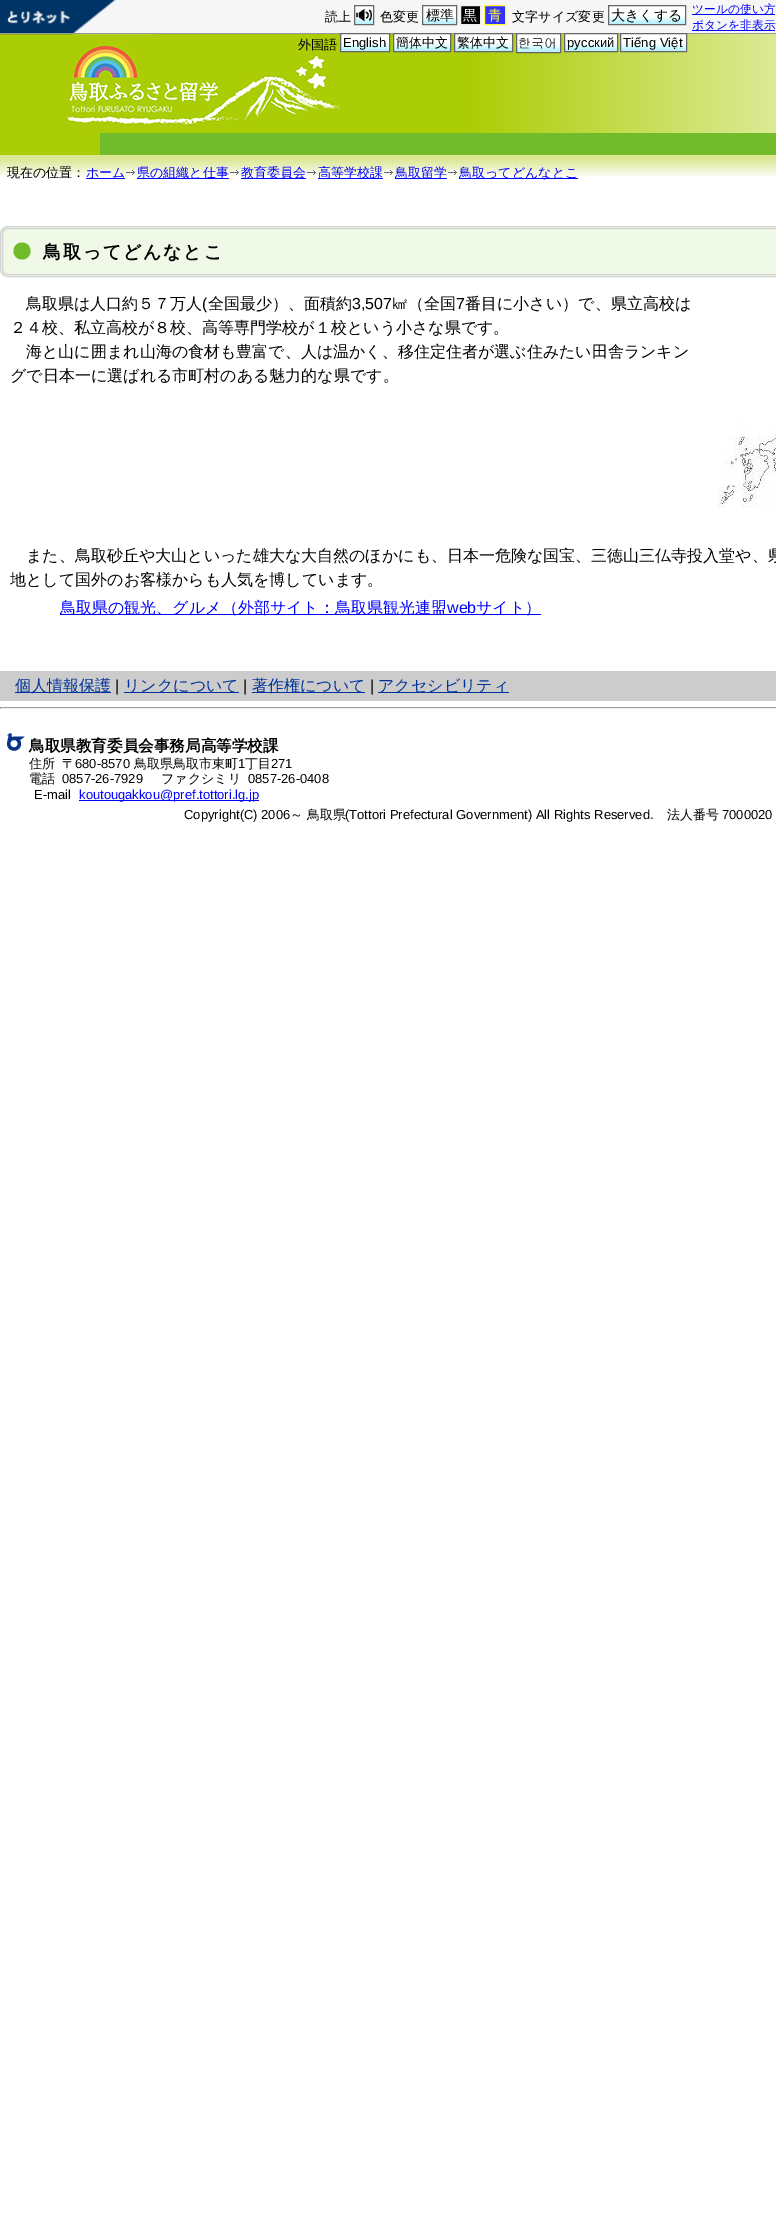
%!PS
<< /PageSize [776 2239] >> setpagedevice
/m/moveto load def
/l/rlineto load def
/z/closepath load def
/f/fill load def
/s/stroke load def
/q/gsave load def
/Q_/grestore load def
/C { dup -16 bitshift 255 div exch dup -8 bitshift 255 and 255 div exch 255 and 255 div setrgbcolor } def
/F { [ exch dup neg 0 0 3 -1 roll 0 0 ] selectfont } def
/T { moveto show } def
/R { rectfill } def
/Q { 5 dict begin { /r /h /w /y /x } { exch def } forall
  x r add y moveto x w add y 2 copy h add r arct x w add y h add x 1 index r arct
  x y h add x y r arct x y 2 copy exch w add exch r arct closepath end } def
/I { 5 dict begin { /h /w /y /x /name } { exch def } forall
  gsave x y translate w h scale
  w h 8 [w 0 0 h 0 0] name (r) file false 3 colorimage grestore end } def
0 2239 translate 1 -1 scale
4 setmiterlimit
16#FFFFFF C
0 0 776 2239 R
16#F6F6F6 C
22 0 754 33 R
(12.rgb) 0 34 776 121 I
(13.rgb) 55 34 293 95 I
(1.rgb) 0 0 158 35 I
16#999999 C
0 33 776 1 R
/WenQuanYiZenHei-Medium 13 F
16#000000 C
325 21 m .1 0 (読上) ashow
16#FFFFFF C
355 6 18 10 R
(2.rgb) 355 16 18 8 I
16#666666 C
354.5 5.5 19 19 rectstroke
(3.rgb) 356 9 16 12 I
16#000000 C
380 21 m .1 0 (色変更) ashow
16#FFFFFF C
423 6 33 10 R
(4.rgb) 423 16 33 8 I
16#666666 C
422.5 5.5 34 19 rectstroke
/WenQuanYiZenHei-Medium 14 F
16#000000 C
(標準) 426 20 T
460.5 5.5 m 20 0 l 0 19 l -20 0 l z q f Q_
16#EEEEEE C
s
16#FFFFFF C
(黒) 463 20 T
16#3333FF C
484.5 5.5 m 21 0 l 0 19 l -21 0 l z q f Q_
16#FFFF33 C
s
(青) 488 20 T
/WenQuanYiZenHei-Medium 13 F
16#000000 C
512 21 m .1 0 (文字サイズ変更) ashow
(5.rgb) 609 6 76 18 I
16#666666 C
608.5 5.5 77 19 rectstroke
/WenQuanYiZenHei-Medium 14 F
16#000000 C
(大きくする) 611 20 T
16#0000FF C
692 14 83 1 R
/WenQuanYiZenHei-Medium 11.75 F
(ツールの使い方) 692 13 T
692 30 83 1 R
(ボタンを非表示) 692 29 T
/WenQuanYiZenHei-Medium 13 F
16#000000 C
298 49 m .1 0 (外国語) ashow
16#FFFFFF C
341 34 48 9 R
(6.rgb) 341 43 48 8 I
16#666666 C
340.5 33.5 49 18 rectstroke
/LiberationSans-Regular 13 F
16#000000 C
343 47 m .1 0 (English) ashow
16#FFFFFF C
394 34 56 9 R
(7.rgb) 394 43 56 8 I
16#666666 C
393.5 33.5 57 18 rectstroke
/WenQuanYiZenHei-Medium 13 F
16#000000 C
396 47 m .1 0 (簡体中文) ashow
16#FFFFFF C
455 34 57 9 R
(8.rgb) 455 43 57 8 I
16#666666 C
454.5 33.5 58 18 rectstroke
16#000000 C
457 47 m .1 0 (繁体中文) ashow
16#FFFFFF C
517 34 43 10 R
(9.rgb) 517 44 43 8 I
16#666666 C
516.5 33.5 44 19 rectstroke
/Gulim-Regular 13 F
16#000000 C
518 48 m .1 0 (한국어) ashow
16#FFFFFF C
565 34 52 9 R
(10.rgb) 565 43 52 8 I
16#666666 C
564.5 33.5 53 18 rectstroke
/LiberationSans-Regular 13 F
16#000000 C
567 47 m .1 0 (русский) ashow
16#FFFFFF C
621 34 65 9 R
(11.rgb) 621 43 65 8 I
16#666666 C
620.5 33.5 66 18 rectstroke
16#000000 C
623 47 m .1 0 (Tiếng Việt) ashow
q 0 155 m 776 0 l 0 22 l -776 0 l z clip newpath
<< /ShadingType 2 /ColorSpace /DeviceRGB /Coords [500 155 500 190] /Extend [true true] /Function << /FunctionType 3 /Domain [0 1] /Functions [<< /FunctionType 2 /Domain [0 1] /C0 [.855 .902 .565] /C1 [.855 .902 .565] /N 1 >> << /FunctionType 2 /Domain [0 1] /C0 [.855 .902 .565] /C1 [1 1 1] /N 1 >> << /FunctionType 2 /Domain [0 1] /C0 [1 1 1] /C1 [1 1 1] /N 1 >>] /Bounds [.1 .65] /Encode [0 1 0 1 0 1] >> >> shfill Q_
/WenQuanYiZenHei-Medium 13 F
(現在の位置：) 7 177 T
16#0000FF C
86 178 39 1 R
(ホーム) 86 177 T
(14.rgb) 126 170 9 5 I
137 178 92 1 R
(県の組織と仕事) 137 177 T
(14.rgb) 230 170 9 5 I
241 178 65 1 R
(教育委員会) 241 177 T
(14.rgb) 307 170 9 5 I
318 178 65 1 R
(高等学校課) 318 177 T
(14.rgb) 384 170 9 5 I
395 178 52 1 R
(鳥取留学) 395 177 T
(14.rgb) 448 170 9 5 I
459 178 119 1 R
(鳥取ってどんなとこ) 459 177 T
16#F0F8E8 C
0 226 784 51 8 Q f
(15.rgb) 13 242 18 18 I
16#D3D3D4 C
.5 226.5 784 50 7.5 Q s
2.5 228.5 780 46 5.5 Q s
/WenQuanYiZenHei-Bold 18 F
16#000000 C
43 258 m 1.75 0 (鳥取ってどんなとこ) ashow
/WenQuanYiZenHei-Medium 16 F
(鳥取県は人口約５７万人) 26 309 T
/LiberationSans-Regular 16 F
(\() 202 309 T
/WenQuanYiZenHei-Medium 16 F
(全国最少）、面積約) 208 309 T
/LiberationSans-Regular 16 F
(3,507) 352 309 T
/WenQuanYiZenHei-Medium 16 F
(㎢（全国) 392 309 T
/LiberationSans-Regular 16 F
(7) 456 309 T
/WenQuanYiZenHei-Medium 16 F
(番目に小さい）で、県立高校は) 465 309 T
(２４校、私立高校が８校、高等専門学校が１校という小さな県です。) 10 333 T
(海と山に囲まれ山海の食材も豊富で、人は温かく、移住定住者が選ぶ住みたい田舎ランキン) 26 357 T
(グで日本一に選ばれる市町村のある魅力的な県です。) 10 381 T
(16.rgb) 718 420 58 88 I
(また、鳥取砂丘や大山といった雄大な大自然のほかにも、日本一危険な国宝、三徳山三仏寺投入堂や、県) 26 561 T
(地として国外のお客様からも人気を博しています。) 10 585 T
16#0000FF C
60 614 481 1 R
(鳥取県の観光、グルメ（外部サイト：鳥取県観光連盟) 60 613 T
/LiberationSans-Regular 16 F
(web) 447 613 T
/WenQuanYiZenHei-Medium 16 F
(サイト）) 476 613 T
16#CCCCCC C
0 671 776 30 R
16#003399 C
15 692 96 1 R
(個人情報保護) 15 691 T
/LiberationSans-Regular 16 F
16#000000 C
(|) 115 691 T
16#003399 C
124 692 115 1 R
/WenQuanYiZenHei-Medium 16 F
(リンクについて) 124 691 T
/LiberationSans-Regular 16 F
16#000000 C
(|) 243 691 T
16#003399 C
252 692 113 1 R
/WenQuanYiZenHei-Medium 16 F
(著作権について) 252 691 T
/LiberationSans-Regular 16 F
16#000000 C
(|) 370 691 T
16#003399 C
378 692 131 1 R
/WenQuanYiZenHei-Medium 16 F
(アクセシビリティ) 378 691 T
16#9F9F9F C
0 707 776 1 R
16#EEEEEE C
0 708 776 1 R
16#9F9F9F C
0 707 1 2 R
(17.rgb) 7 733 18 18 I
/WenQuanYiZenHei-Bold 15.6 F
16#000000 C
(鳥取県教育委員会事務局高等学校課) 29 751 T
/WenQuanYiZenHei-Medium 13 F
(住所) 29 768 T
(〒) 62 768 T
/LiberationSans-Regular 13 F
(680-8570) 75 768 T
/WenQuanYiZenHei-Medium 13 F
(鳥取県鳥取市東町) 134 768 T
/LiberationSans-Regular 13 F
(1) 238 768 T
/WenQuanYiZenHei-Medium 13 F
(丁目) 245 768 T
/LiberationSans-Regular 13 F
(271) 271 768 T
/WenQuanYiZenHei-Medium 13 F
(電話) 29 783 T
/LiberationSans-Regular 13 F
(0857-26-7929) 62 783 T
/WenQuanYiZenHei-Medium 13 F
(ファクシミリ) 161 783 T
/LiberationSans-Regular 13 F
(0857-26-0408) 248 783 T
(E-mail) 34 799 T
16#0000FF C
79 800 180 1 R
(koutougakkou@pref.tottori.lg.jp) 79 799 T
16#000000 C
(Copyright\(C\) 2006) 184 819 T
/WenQuanYiZenHei-Medium 13 F
(～ 鳥取県) 290 819 T
/LiberationSans-Regular 13 F
(\(Tottori Prefectural Government\) All Rights Reserved.) 345 819 T
/WenQuanYiZenHei-Medium 13 F
(法人番号) 667 819 T
/LiberationSans-Regular 13 F
(7000020) 722 819 T
showpage
